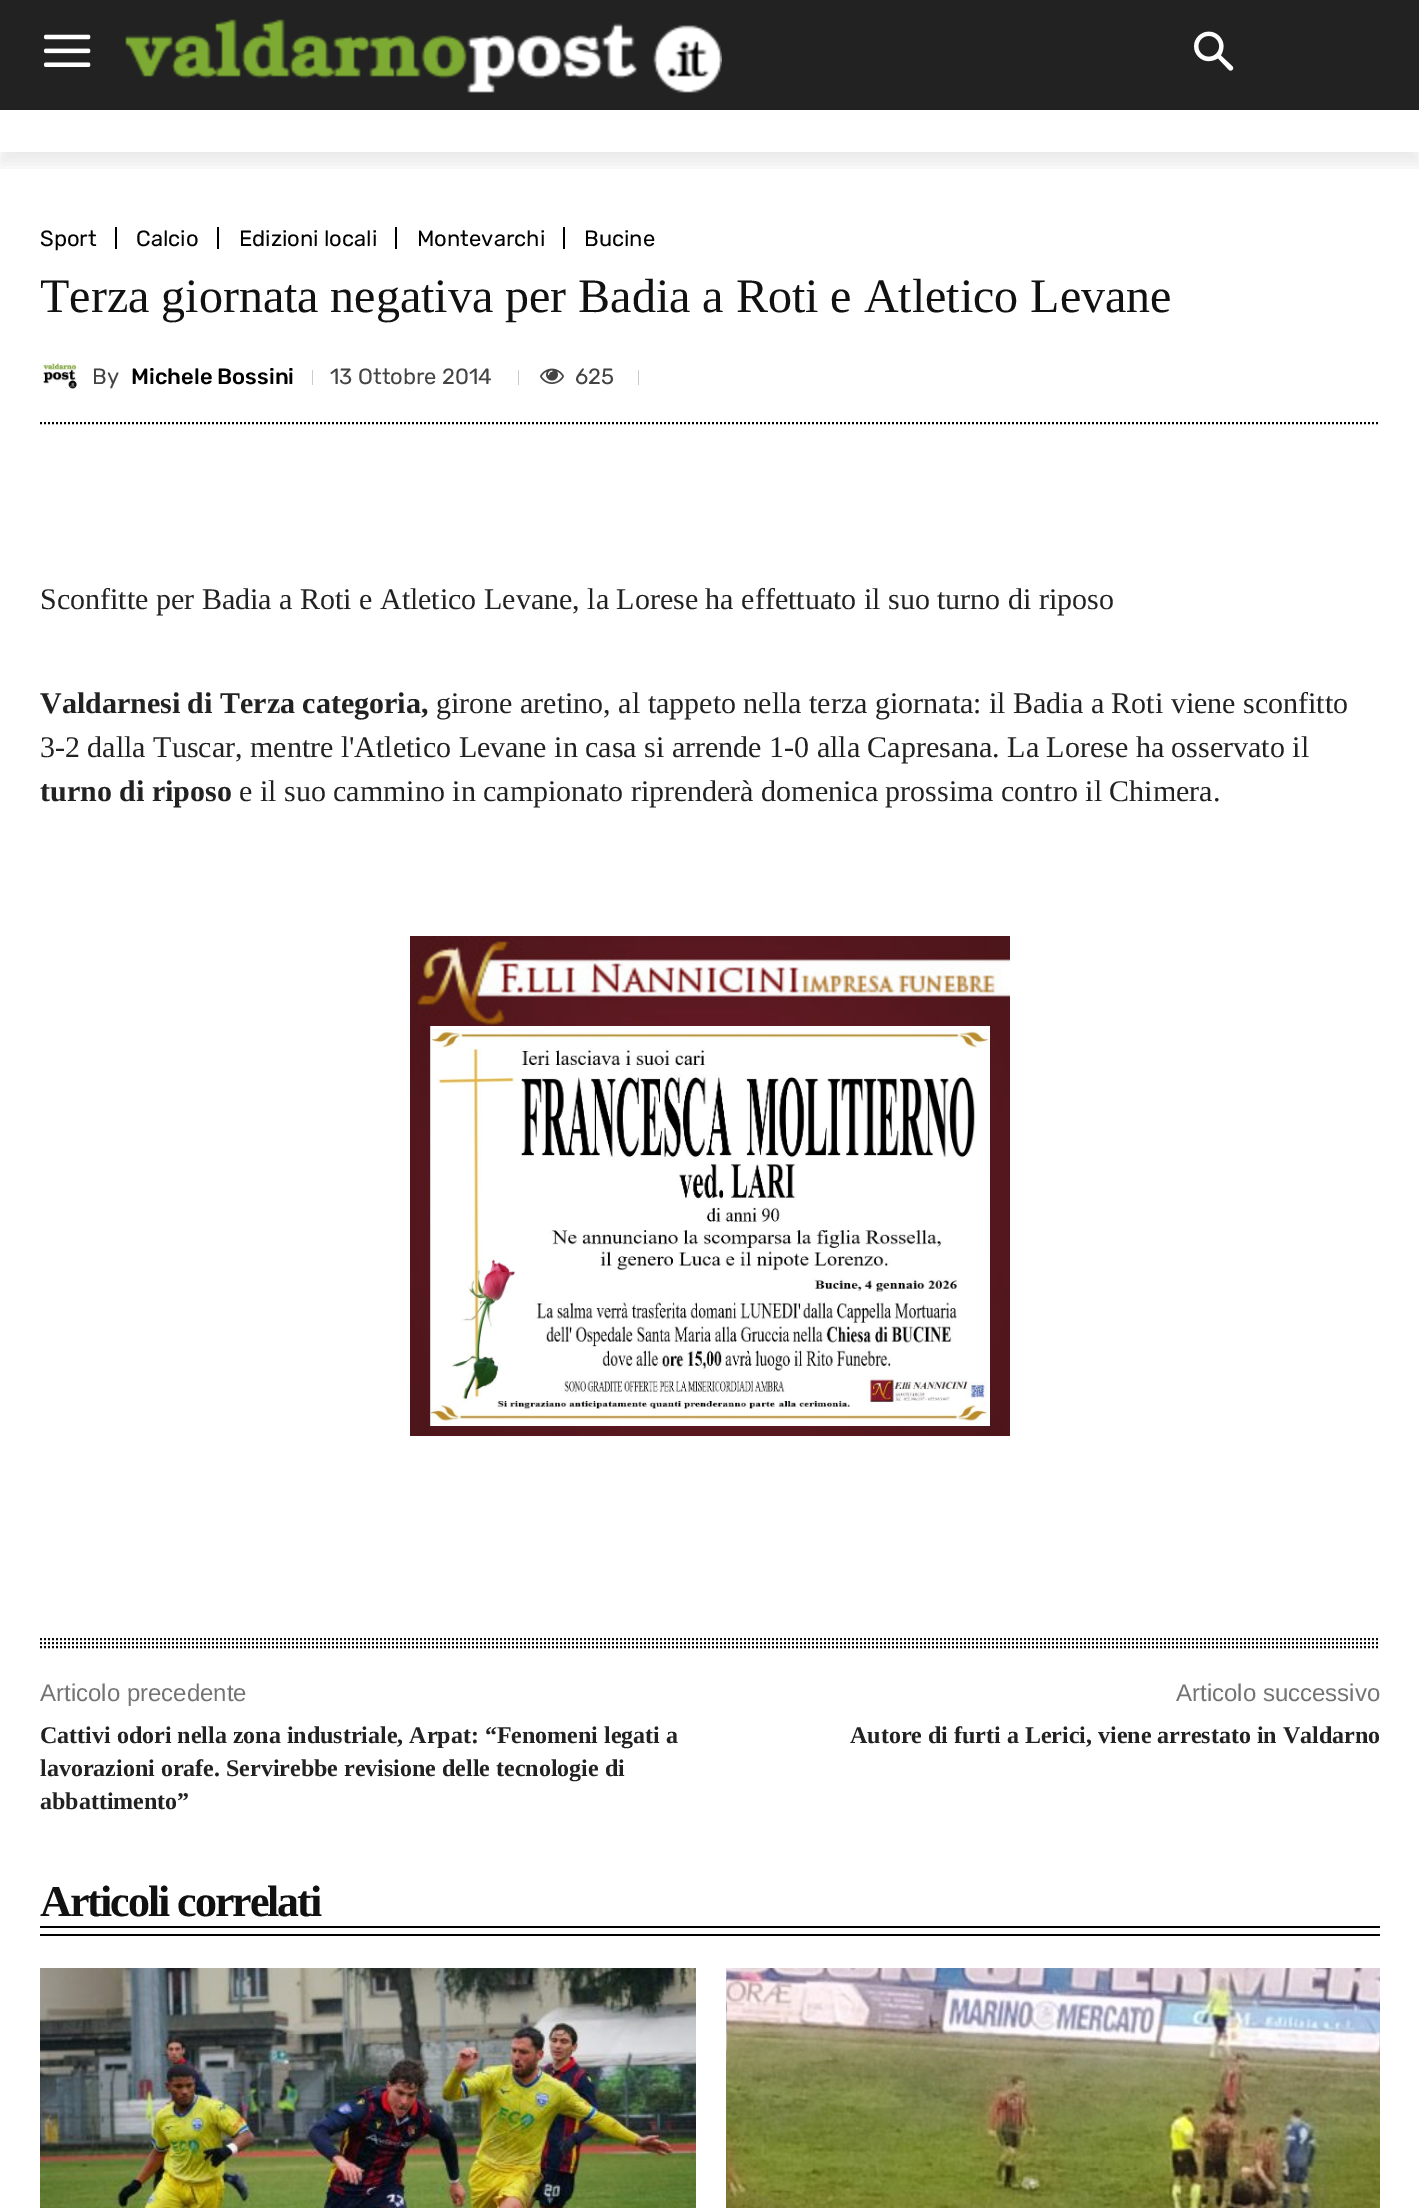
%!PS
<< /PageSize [1419 2208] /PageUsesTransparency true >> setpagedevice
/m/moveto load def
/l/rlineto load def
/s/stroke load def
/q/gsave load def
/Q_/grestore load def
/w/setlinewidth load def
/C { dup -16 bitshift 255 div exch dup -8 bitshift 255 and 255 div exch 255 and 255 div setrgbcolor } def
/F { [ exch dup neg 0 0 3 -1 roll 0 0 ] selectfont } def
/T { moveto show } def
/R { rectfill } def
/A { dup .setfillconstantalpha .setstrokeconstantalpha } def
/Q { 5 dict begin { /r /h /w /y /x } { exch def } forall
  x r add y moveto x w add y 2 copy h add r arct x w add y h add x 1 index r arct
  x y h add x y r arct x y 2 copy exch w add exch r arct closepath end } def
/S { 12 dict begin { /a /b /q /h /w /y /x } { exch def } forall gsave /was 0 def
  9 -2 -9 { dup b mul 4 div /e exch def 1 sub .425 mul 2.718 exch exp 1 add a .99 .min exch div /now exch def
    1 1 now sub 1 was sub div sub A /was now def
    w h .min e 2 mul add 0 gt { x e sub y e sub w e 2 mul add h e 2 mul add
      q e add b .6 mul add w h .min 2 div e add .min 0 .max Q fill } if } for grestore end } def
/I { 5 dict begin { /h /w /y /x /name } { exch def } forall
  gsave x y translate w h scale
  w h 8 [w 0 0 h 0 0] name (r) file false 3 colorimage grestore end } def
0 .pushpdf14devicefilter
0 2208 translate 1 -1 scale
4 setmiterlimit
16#FFFFFF C
0 0 1419 2208 R
16#222222 C
0 0 1419 110 R
(1.rgb) 44 34 47 33 I
(2.rgb) 125 19 597 74 I
(3.rgb) 1194 31 40 40 I
q
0 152 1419 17 rectclip
16#000000 C
0 12 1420 152 0 8 .08 S
Q_
/Rubik-Regular 22 F
16#000000 C
(Sport) 40 246 T
115 227 2 22 R
(Calcio) 136 246 T
217 227 2 22 R
(Edizioni locali) 239 246 T
395 227 2 22 R
(Montevarchi) 417 246 T
563 227 2 22 R
(Bucine) 584 246 T
/LiberationSerif-Regular 48 F
16#111111 C
(Terza giornata negativa per Badia a Roti e Atletico Levane) 40 312 T
(4.rgb) 42 362 35 27 I
/Rubik-Regular 22 F
16#444444 C
(By) 92 384 T
/Rubik-Medium 22 F
16#000000 C
(Michele Bossini) 131 384 T
16#CCCCCC C
312 370 1 15 R
/Rubik-Regular 22 F
16#444444 C
(13 Ottobre 2014) 330 384 T
16#CCCCCC C
518 370 1 15 R
(5.rgb) 540 368 24 16 I
16#444444 C
(625) 575 384 T
16#CCCCCC C
638 370 1 15 R
16#000000 C
2 w
[2 2] 0 setdash
40 423 m 1340 0 l s
/LiberationSerif-Regular 30 F
16#222222 C
(Sconfitte per Badia a Roti e Atletico Levane, la Lorese ha effettuato il suo turno di riposo) 40 609 T
/LiberationSerif-Bold 30 F
(Valdarnesi di Terza categoria,) 40 713 T
/LiberationSerif-Regular 30 F
(girone aretino, al tappeto nella terza giornata: il Badia a Roti viene sconfitto) 436 713 T
(3-2 dalla Tuscar, mentre l'Atletico Levane in casa si arrende 1-0 alla Capresana. La Lorese ha osservato il) 40 757 T
/LiberationSerif-Bold 30 F
(turno di riposo) 40 801 T
/LiberationSerif-Regular 30 F
(e il suo cammino in campionato riprenderà domenica prossima contro il Chimera.) 239 801 T
(6.rgb) 410 936 600 500 I
16#0A0A0A C
40 1639 m 1340 0 l s
40 1643 m 1340 0 l s
40 1647 m 1340 0 l s
/LiberationSans-Regular 24 F
16#747474 C
(Articolo precedente) 40 1701 T
/LiberationSerif-Bold 24 F
16#222222 C
(Cattivi odori nella zona industriale, Arpat: “Fenomeni legati a) 40 1743 T
(lavorazioni orafe. Servirebbe revisione delle tecnologie di) 40 1776 T
(abbattimento”) 40 1809 T
/LiberationSans-Regular 24 F
16#747474 C
(Articolo successivo) 1176 1701 T
/LiberationSerif-Bold 24 F
16#222222 C
(Autore di furti a Lerici, viene arrestato in Valdarno) 850 1743 T
/LiberationSerif-Bold 44 F
16#111111 C
40 1916 m -2 0 (Articoli correlati) ashow
16#000000 C
40 1926 1340 2 R
40 1934 1340 2 R
(7.rgb) 40 1968 656 240 I
(8.rgb) 726 1968 654 240 I
.poppdf14devicefilter showpage
